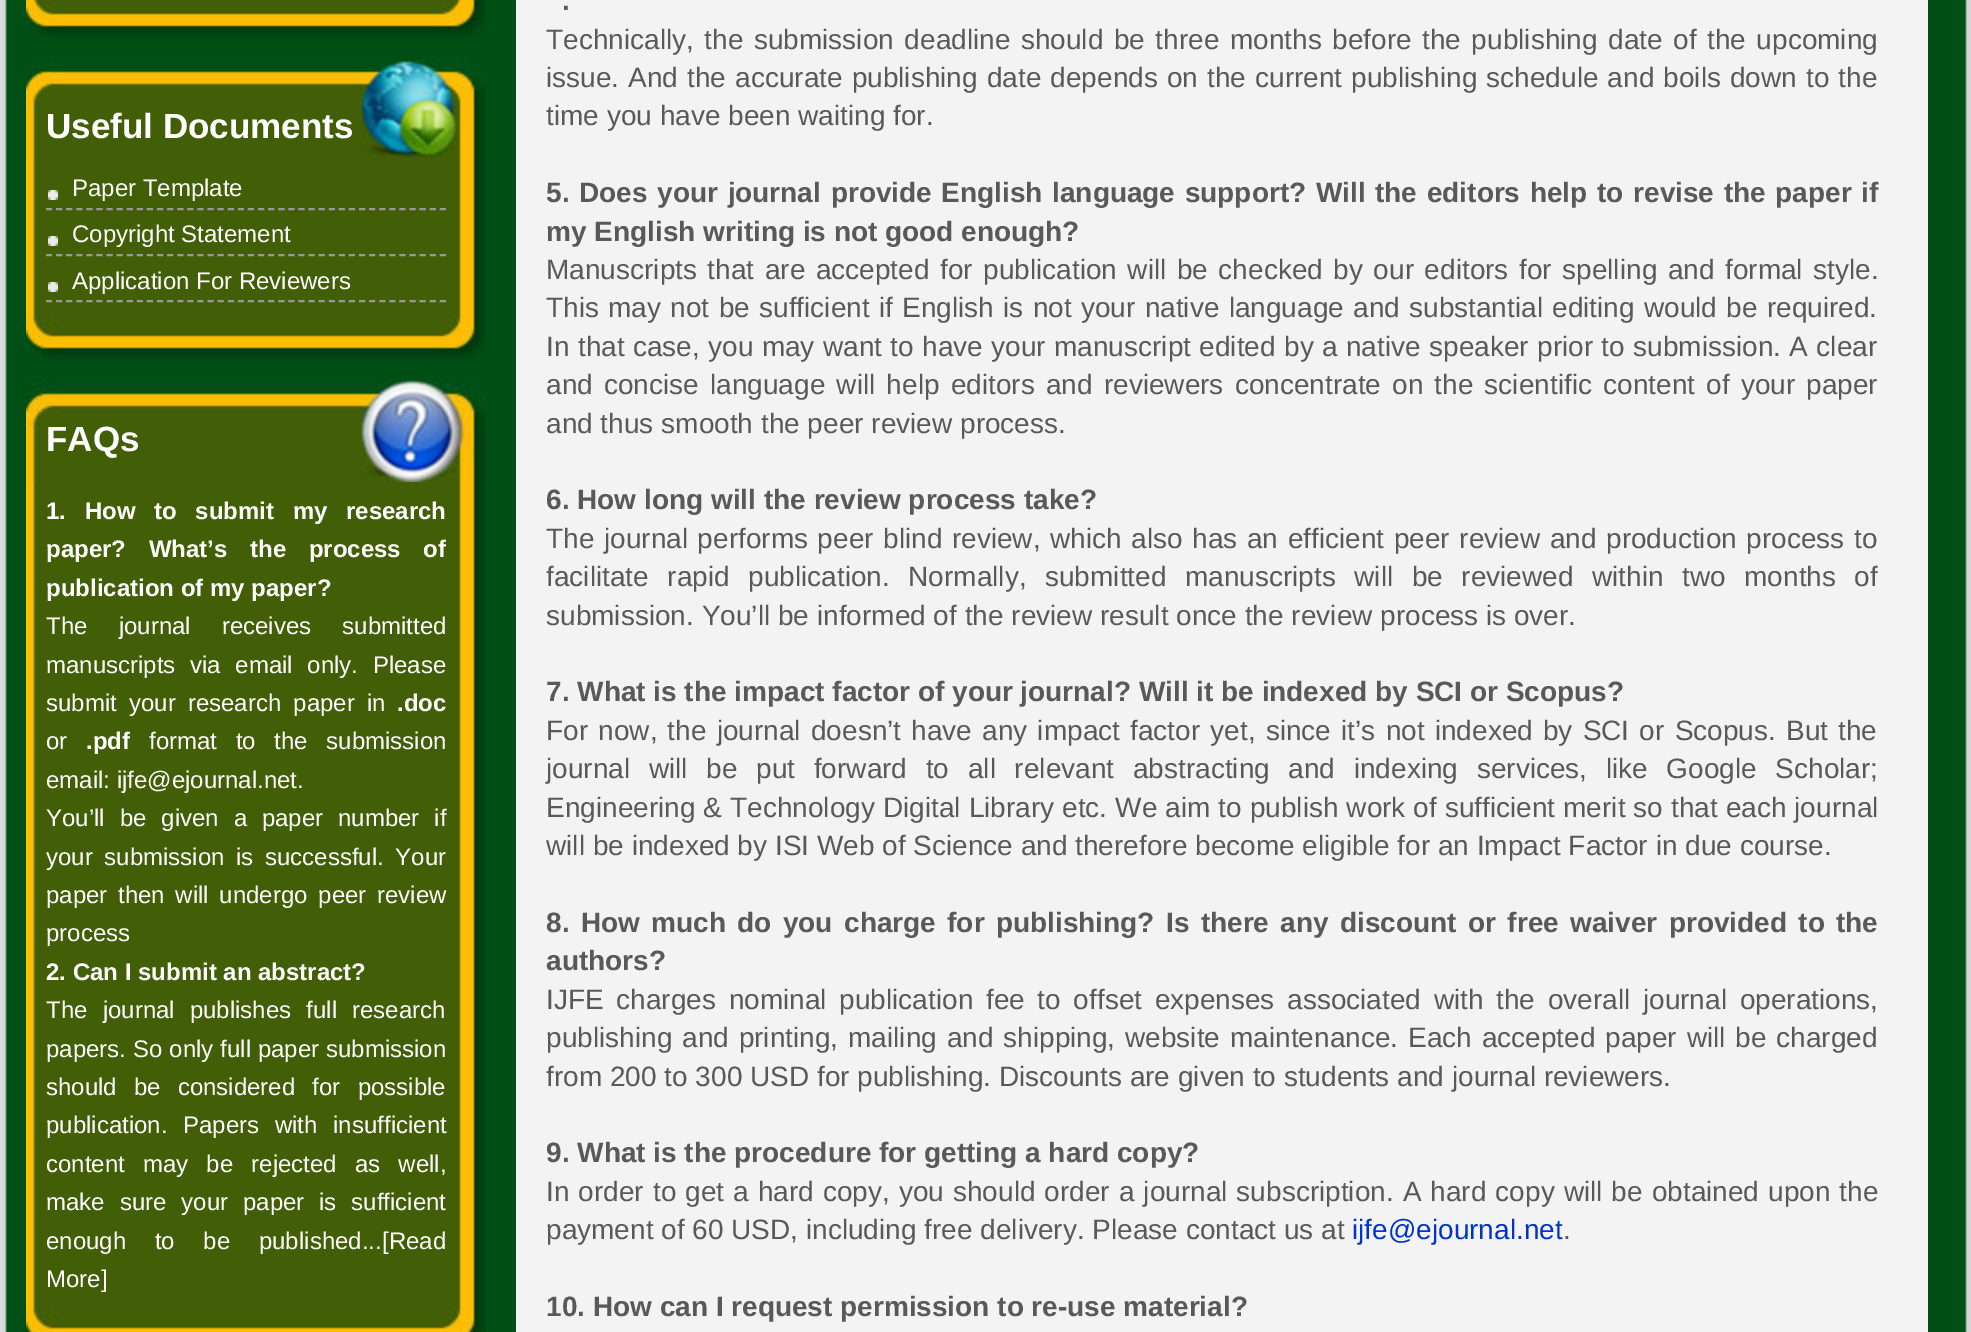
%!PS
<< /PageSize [1971 1332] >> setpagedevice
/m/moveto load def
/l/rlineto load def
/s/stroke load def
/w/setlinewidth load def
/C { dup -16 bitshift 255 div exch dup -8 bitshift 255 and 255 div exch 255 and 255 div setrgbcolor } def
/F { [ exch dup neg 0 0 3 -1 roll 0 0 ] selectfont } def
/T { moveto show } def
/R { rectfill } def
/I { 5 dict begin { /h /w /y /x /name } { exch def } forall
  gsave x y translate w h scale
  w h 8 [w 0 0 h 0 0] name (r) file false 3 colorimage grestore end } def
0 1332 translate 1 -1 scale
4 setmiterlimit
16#FFFFFF C
0 0 1971 1332 R
(1.rgb) 0 0 1971 1332 I
(2.rgb) 26 0 460 38 I
(3.rgb) 26 58 460 102 I
/LiberationSans-Bold 35 F
(Useful Documents) 46 138 T
(4.rgb) 26 160 460 158 I
(5.rgb) 48 190 10 10 I
16#999999 C
2 w
[6 4.1] 0 setdash
46 209 m 400 0 l s
/LiberationSans-Regular 24 F
16#FFFFFF C
(Paper Template) 72 196 T
(5.rgb) 48 236 10 10 I
16#999999 C
46 255 m 400 0 l s
16#FFFFFF C
(Copyright Statement) 72 242 T
(5.rgb) 48 282 10 10 I
16#999999 C
46 301 m 400 0 l s
16#FFFFFF C
(Application For Reviewers) 72 289 T
(6.rgb) 26 318 460 42 I
(7.rgb) 26 380 460 102 I
/LiberationSans-Bold 35 F
(FAQs) 46 451 T
(8.rgb) 26 482 460 828 I
/LiberationSans-Bold 24 F
46 519 m 12 0 32 (1. How to submit my research) widthshow
46 557 m 16 0 32 (paper? What’s the process of) widthshow
(publication of my paper?) 46 596 T
/LiberationSans-Regular 24 F
46 634 m 24.5 0 32 (The journal receives submitted) widthshow
46 673 m 8 0 32 (manuscripts via email only. Please) widthshow
46 711 m 5.5 0 32 (submit your research paper in) widthshow
/LiberationSans-Bold 24 F
(.doc) 397 711 T
/LiberationSans-Regular 24 F
(or) 46 749 T
/LiberationSans-Bold 24 F
(.pdf) 86 749 T
/LiberationSans-Regular 24 F
149 749 m 12 0 32 (format to the submission) widthshow
(email: ijfe@ejournal.net.) 46 788 T
46 826 m 8.25 0 32 (You’ll be given a paper number if) widthshow
46 865 m 5 0 32 (your submission is successful. Your) widthshow
46 903 m 4 0 32 (paper then will undergo peer review) widthshow
(process) 46 941 T
/LiberationSans-Bold 24 F
(2. Can I submit an abstract?) 46 980 T
/LiberationSans-Regular 24 F
46 1018 m 8.5 0 32 (The journal publishes full research) widthshow
46 1057 m .25 0 32 (papers. So only full paper submission) widthshow
46 1095 m 10.5 0 32 (should be considered for possible) widthshow
46 1133 m 9 0 32 (publication. Papers with insufficient) widthshow
46 1172 m 11.5 0 32 (content may be rejected as well,) widthshow
46 1210 m 8.25 0 32 (make sure your paper is sufficient) widthshow
46 1249 m 22 0 32 (enough to be published...) widthshow
([Read) 382 1249 T
(More]) 46 1287 T
(9.rgb) 26 1310 460 22 I
16#F3F3F3 C
516 0 1412 1332 R
/LiberationSans-Bold 28 F
16#595959 C
(.) 562 10 T
/LiberationSans-Regular 28 F
546 49 m 2.75 0 32 (Technically, the submission deadline should be three months before the publishing date of the upcoming) widthshow
546 87 m 1.3 0 32 (issue. And the accurate publishing date depends on the current publishing schedule and boils down to the) widthshow
(time you have been waiting for.) 546 125 T
/LiberationSans-Bold 28 F
546 202 m 1.9 0 32 (5. Does your journal provide English language support? Will the editors help to revise the paper if) widthshow
(my English writing is not good enough?) 546 241 T
/LiberationSans-Regular 28 F
546 279 m 2.75 0 32 (Manuscripts that are accepted for publication will be checked by our editors for spelling and formal style.) widthshow
546 317 m 1.5 0 32 (This may not be sufficient if English is not your native language and substantial editing would be required.) widthshow
546 356 m .6 0 32 (In that case, you may want to have your manuscript edited by a native speaker prior to submission. A clear) widthshow
546 394 m 3.4 0 32 (and concise language will help editors and reviewers concentrate on the scientific content of your paper) widthshow
(and thus smooth the peer review process.) 546 433 T
/LiberationSans-Bold 28 F
(6. How long will the review process take?) 546 509 T
/LiberationSans-Regular 28 F
546 548 m 1.8 0 32 (The journal performs peer blind review, which also has an efficient peer review and production process to) widthshow
546 586 m 10.75 0 32 (facilitate rapid publication. Normally, submitted manuscripts will be reviewed within two months of) widthshow
(submission. You’ll be informed of the review result once the review process is over.) 546 625 T
/LiberationSans-Bold 28 F
(7. What is the impact factor of your journal? Will it be indexed by SCI or Scopus?) 546 701 T
/LiberationSans-Regular 28 F
546 740 m 2.4 0 32 (For now, the journal doesn’t have any impact factor yet, since it’s not indexed by SCI or Scopus. But the) widthshow
546 778 m 10.9 0 32 (journal will be put forward to all relevant abstracting and indexing services, like Google Scholar;) widthshow
546 817 m .2 0 32 (Engineering & Technology Digital Library etc. We aim to publish work of sufficient merit so that each journal) widthshow
(will be indexed by ISI Web of Science and therefore become eligible for an Impact Factor in due course.) 546 855 T
/LiberationSans-Bold 28 F
546 932 m 3.6 0 32 (8. How much do you charge for publishing? Is there any discount or free waiver provided to the) widthshow
(authors?) 546 970 T
/LiberationSans-Regular 28 F
546 1009 m 4.9 0 32 (IJFE charges nominal publication fee to offset expenses associated with the overall journal operations,) widthshow
546 1047 m 2.1 0 32 (publishing and printing, mailing and shipping, website maintenance. Each accepted paper will be charged) widthshow
(from 200 to 300 USD for publishing. Discounts are given to students and journal reviewers.) 546 1086 T
/LiberationSans-Bold 28 F
(9. What is the procedure for getting a hard copy?) 546 1162 T
/LiberationSans-Regular 28 F
546 1201 m 1.25 0 32 (In order to get a hard copy, you should order a journal subscription. A hard copy will be obtained upon the) widthshow
(payment of 60 USD, including free delivery. Please contact us at) 546 1239 T
16#0033CC C
(ijfe@ejournal.net) 1352 1239 T
16#595959 C
(.) 1563 1239 T
/LiberationSans-Bold 28 F
(10. How can I request permission to re-use material?) 546 1316 T
showpage
